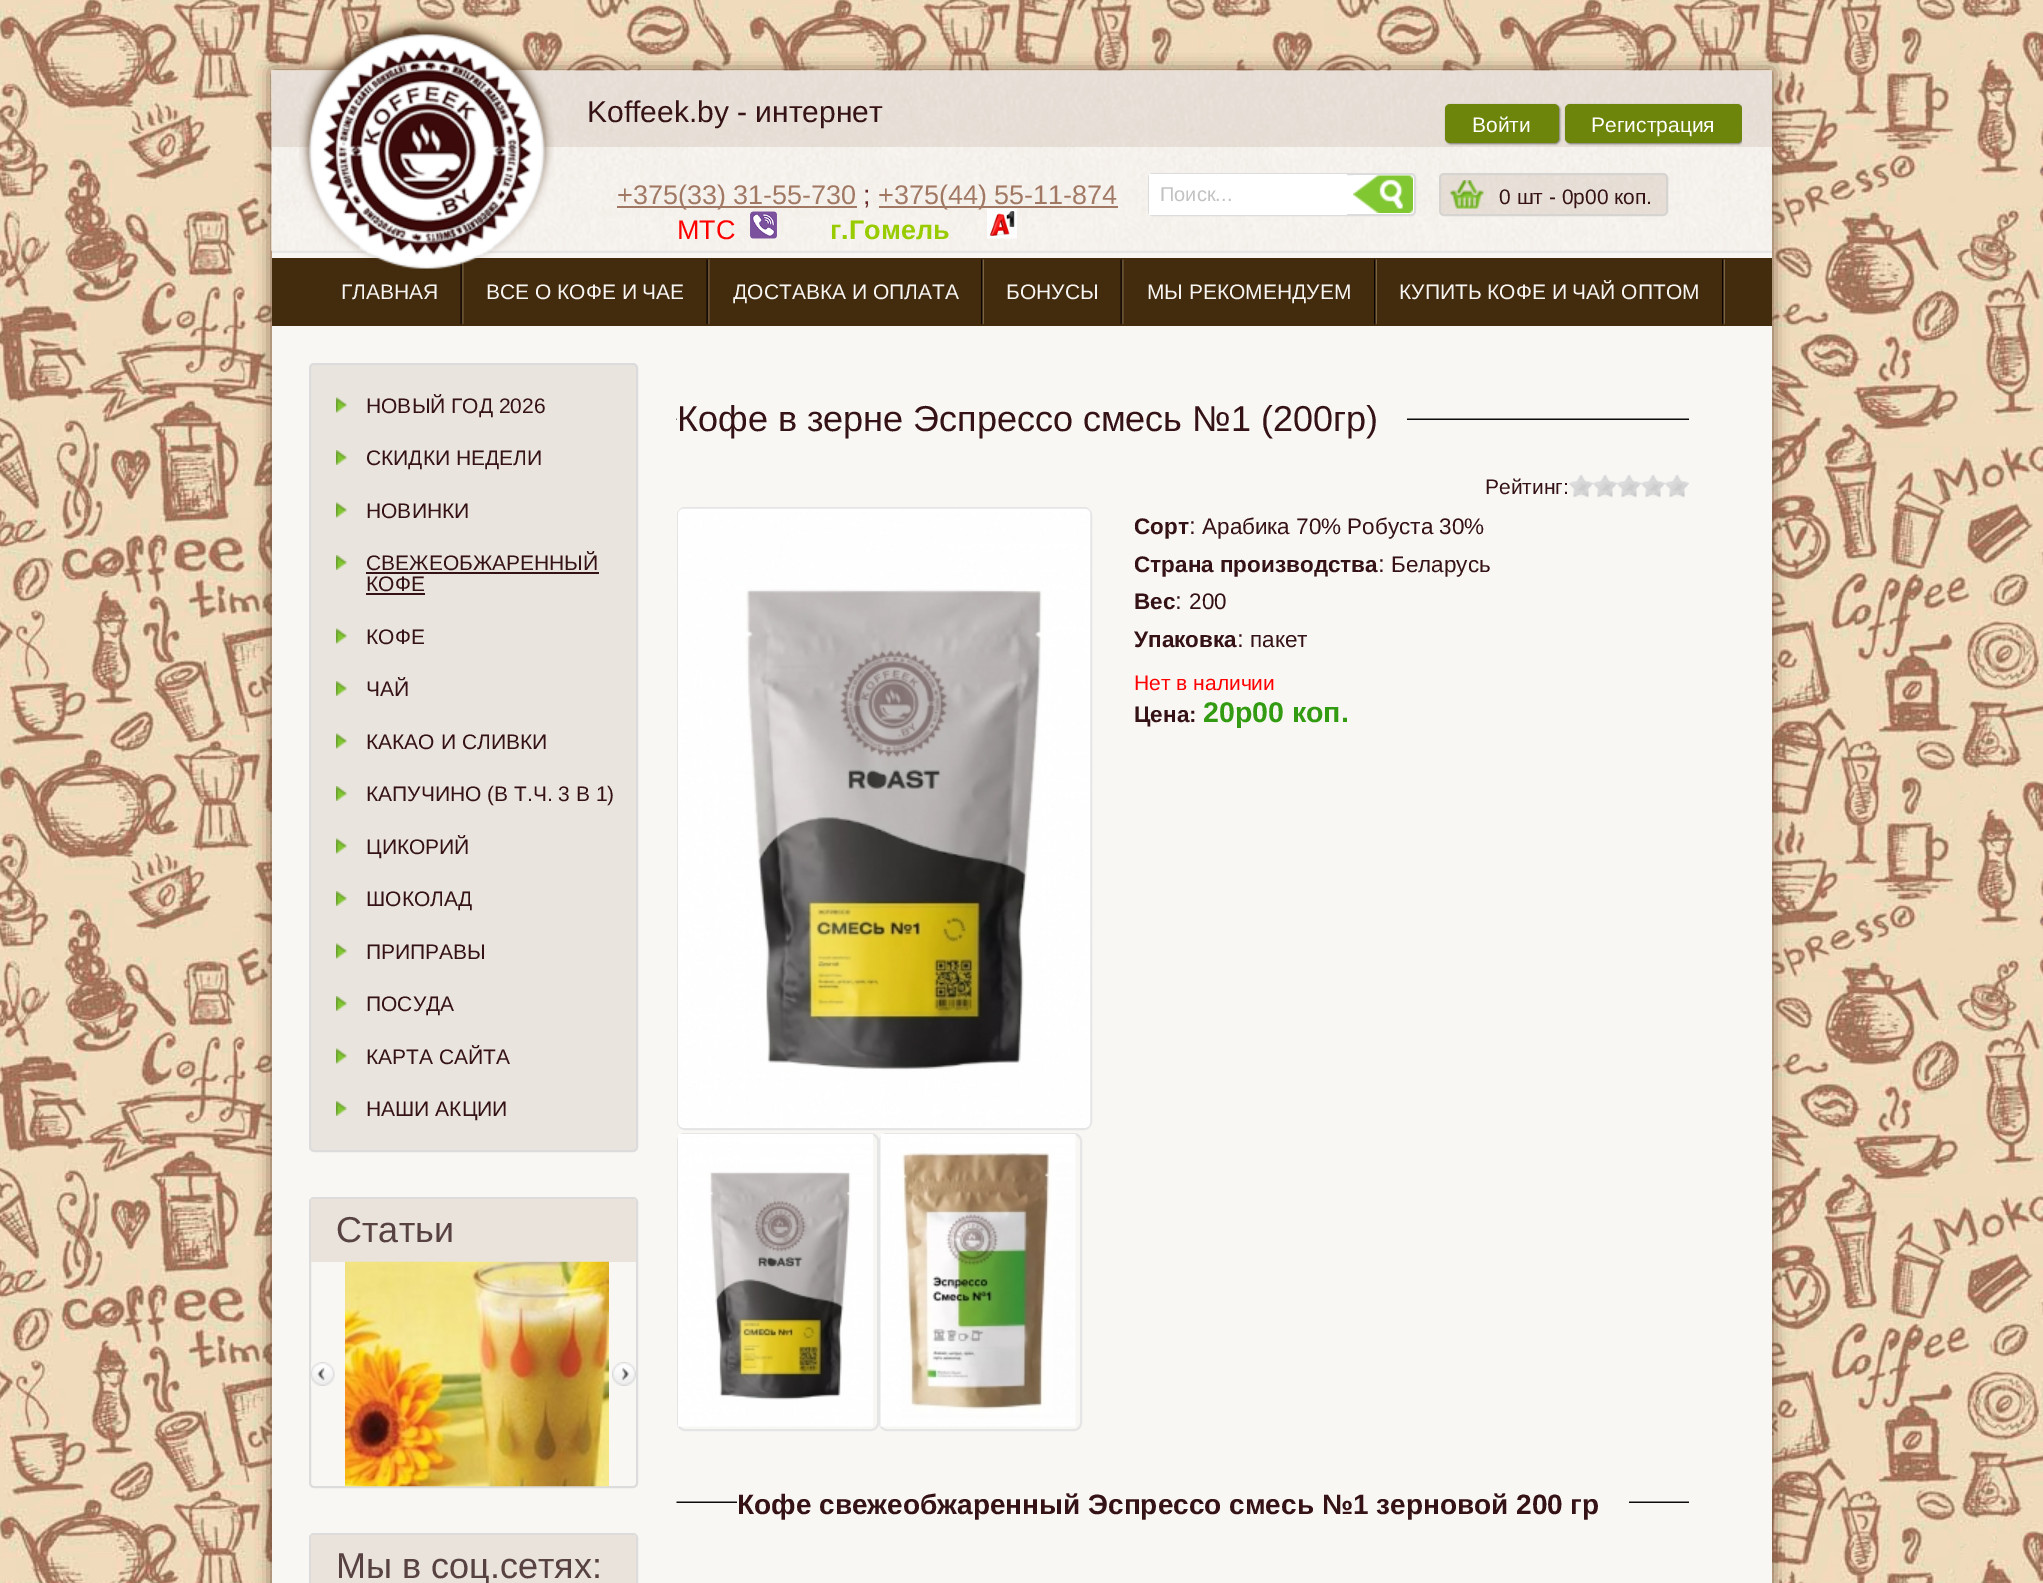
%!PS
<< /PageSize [2043 1583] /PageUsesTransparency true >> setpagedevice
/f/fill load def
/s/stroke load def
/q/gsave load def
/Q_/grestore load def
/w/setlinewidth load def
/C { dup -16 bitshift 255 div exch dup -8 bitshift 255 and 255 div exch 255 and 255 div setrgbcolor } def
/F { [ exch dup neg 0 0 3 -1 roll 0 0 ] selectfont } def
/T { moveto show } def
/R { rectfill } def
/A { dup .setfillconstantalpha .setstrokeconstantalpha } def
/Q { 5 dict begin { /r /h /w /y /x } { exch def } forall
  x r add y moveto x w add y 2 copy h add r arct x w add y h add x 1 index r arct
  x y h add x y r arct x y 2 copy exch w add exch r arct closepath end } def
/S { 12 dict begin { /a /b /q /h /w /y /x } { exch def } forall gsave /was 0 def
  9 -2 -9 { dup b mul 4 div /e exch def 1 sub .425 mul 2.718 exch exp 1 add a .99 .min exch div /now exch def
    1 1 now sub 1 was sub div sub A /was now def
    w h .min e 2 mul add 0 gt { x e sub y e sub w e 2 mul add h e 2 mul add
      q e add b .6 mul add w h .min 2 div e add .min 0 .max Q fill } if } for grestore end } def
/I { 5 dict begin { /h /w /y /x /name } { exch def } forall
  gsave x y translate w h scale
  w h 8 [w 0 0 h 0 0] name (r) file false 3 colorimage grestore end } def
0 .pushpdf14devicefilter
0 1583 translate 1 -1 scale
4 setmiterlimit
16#FFFFFF C
0 0 2043 1583 R
(1.rgb) 0 0 2043 1583 I
16#70513A C
272 71 1500 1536 0 8 1 S
16#F9F7F4 C
272 253 1500 1330 R
16#F0EDE8 C
272 71 1500 180 R
(2.rgb) 271 70 1501 181 I
0.15 A
16#967A5F C
272 71 1500 76 R
1 A
16#E7E7E7 C
272 251 1500 2 R
16#432B0E C
272 258 1500 68 R
(8.rgb) 460 260 4 65 I
(3.rgb) 299 18 255 251 I
/LiberationSans-Regular 30 F
16#351215 C
(Koffeek.by - интернет) 587 122 T
16#000000 C
1446 105 114 39 5 1 .5 S
16#6D850A C
1445 104 114 39 5 Q f
/LiberationSans-Regular 21 F
16#FFFFFF C
(Войти) 1472 132 T
q
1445 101 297 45 rectclip
16#000000 C
1566 105 177 39 5 1 .5 S
Q_
16#6D850A C
1565 104 177 39 5 Q f
16#FFFFFF C
(Регистрация) 1591 132 T
16#A07863 C
617 206 240 2 R
/LiberationSans-Regular 27 F
(+375\(33\) 31-55-730) 617 204 T
16#672828 C
(;) 863 204 T
16#A07863 C
879 206 239 2 R
(+375\(44\) 55-11-874) 878 204 T
16#FF0000 C
(МТС) 677 239 T
(4.rgb) 750 211 27 28 I
/LiberationSans-Bold 27 F
16#99CC00 C
(г.Гомель) 830 239 T
(5.rgb) 987 208 30 31 I
16#FFFFFF C
1149 174 266 41 4 Q q f Q_
16#DCDCDC C
2 w
s
16#FFFFFF C
1149 174 198 41 R
/LiberationSans-Regular 20 F
16#C2C2C2 C
(Поиск...) 1160 201 T
(6.rgb) 1353 175 60 38 I
0.15 A
16#967A5F C
1440 174 227 41 4 Q f
1 A
16#D6D4D0 C
1440 174 227 41 4 Q s
(7.rgb) 1450 180 34 29 I
/LiberationSans-Regular 21 F
16#351215 C
(0 шт - 0p00 коп.) 1499 204 T
16#F7F5F2 C
(ГЛАВНАЯ) 341 299 T
(9.rgb) 706 259 4 66 I
(ВСЕ О КОФЕ И ЧАЕ) 486 299 T
(10.rgb) 981 259 3 66 I
(ДОСТАВКА И ОПЛАТА) 733 299 T
(9.rgb) 1120 259 4 66 I
(БОНУСЫ) 1006 299 T
(10.rgb) 1374 259 3 66 I
(МЫ РЕКОМЕНДУЕМ) 1147 299 T
(10.rgb) 1722 259 3 66 I
(КУПИТЬ КОФЕ И ЧАЙ ОПТОМ) 1399 299 T
16#EAE4DE C
310 364 327 787 4 Q q f Q_
16#DCDCDC C
s
(11.rgb) 336 397 11 16 I
16#351215 C
(НОВЫЙ ГОД 2026) 366 413 T
(12.rgb) 336 450 11 15 I
(СКИДКИ НЕДЕЛИ) 366 465 T
(11.rgb) 336 502 11 16 I
(НОВИНКИ) 366 518 T
(12.rgb) 336 555 11 15 I
(СВЕЖЕОБЖАРЕННЫЙ) 366 570 T
(КОФЕ) 366 591 T
366 572 233 2 R
366 593 59 2 R
(11.rgb) 336 628 11 16 I
(КОФЕ) 366 644 T
(12.rgb) 336 681 11 15 I
(ЧАЙ) 366 696 T
(11.rgb) 336 733 11 16 I
(КАКАО И СЛИВКИ) 366 749 T
(12.rgb) 336 786 11 15 I
(КАПУЧИНО \(В Т.Ч. 3 В 1\)) 366 801 T
(11.rgb) 336 838 11 16 I
(ЦИКОРИЙ) 366 854 T
(12.rgb) 336 891 11 15 I
(ШОКОЛАД) 366 906 T
(11.rgb) 336 943 11 16 I
(ПРИПРАВЫ) 366 959 T
(12.rgb) 336 996 11 15 I
(ПОСУДА) 366 1011 T
(11.rgb) 336 1048 11 16 I
(КАРТА САЙТА) 366 1064 T
(12.rgb) 336 1101 11 15 I
(НАШИ АКЦИИ) 366 1116 T
16#DCDCDC C
310 1198 327 289 4 Q s
16#E9E3DC C
311 1199 325 63 R
/LiberationSans-Regular 36 F
16#574241 C
(Статьи) 336 1242 T
(13.rgb) 311 1362 24 24 I
(14.rgb) 345 1261 264 226 I
(15.rgb) 612 1362 24 24 I
16#DCDCDC C
310 1534 327 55 4 Q s
16#E9E3DC C
311 1535 325 48 R
16#574241 C
(Мы в соц.сетях:) 336 1578 T
(16.rgb) 676 418 1013 2 I
16#F9F7F4 C
677 418 730 2 R
16#351215 C
(Кофе в зерне Эспрессо смесь №1 \(200гр\)) 677 431 T
/LiberationSans-Regular 21 F
(Рейтинг:) 1485 494 T
(17.rgb) 1569 474 120 24 I
16#E5E5E5 C
678 508 413 621 7 Q s
(18.rgb) 678 508 413 620 I
678 1134 200 296 7 Q s
(19.rgb) 678 1134 195 293 I
880 1134 201 296 7 Q s
(20.rgb) 880 1134 196 293 I
/LiberationSans-Bold 22.5 F
16#351215 C
(Сорт) 1134 534 T
/LiberationSans-Regular 24 F
(:) 1189 534 T
/LiberationSans-Regular 22.5 F
(Арабика 70% Робуста 30%) 1202 534 T
/LiberationSans-Bold 22.5 F
(Страна производства) 1134 572 T
/LiberationSans-Regular 24 F
(:) 1378 572 T
/LiberationSans-Regular 22.5 F
(Беларусь) 1391 572 T
/LiberationSans-Bold 22.5 F
(Вес) 1134 609 T
/LiberationSans-Regular 24 F
(:) 1175 609 T
/LiberationSans-Regular 22.5 F
(200) 1189 609 T
/LiberationSans-Bold 22.5 F
(Упаковка) 1134 647 T
/LiberationSans-Regular 24 F
(:) 1237 647 T
/LiberationSans-Regular 22.5 F
(пакет) 1250 647 T
/LiberationSans-Regular 21 F
16#FF0000 C
(Нет в наличии) 1134 690 T
/LiberationSans-Bold 22.5 F
16#351215 C
(Цена:) 1134 722 T
/LiberationSans-Bold 28.5 F
16#339B12 C
(20p00 коп.) 1203 722 T
(16.rgb) 676 1501 1013 2 I
16#F9F7F4 C
737 1501 892 2 R
/LiberationSans-Bold 28 F
16#351215 C
(Кофе свежеобжаренный Эспрессо смесь №1 зерновой 200 гр) 737 1514 T
.poppdf14devicefilter showpage
